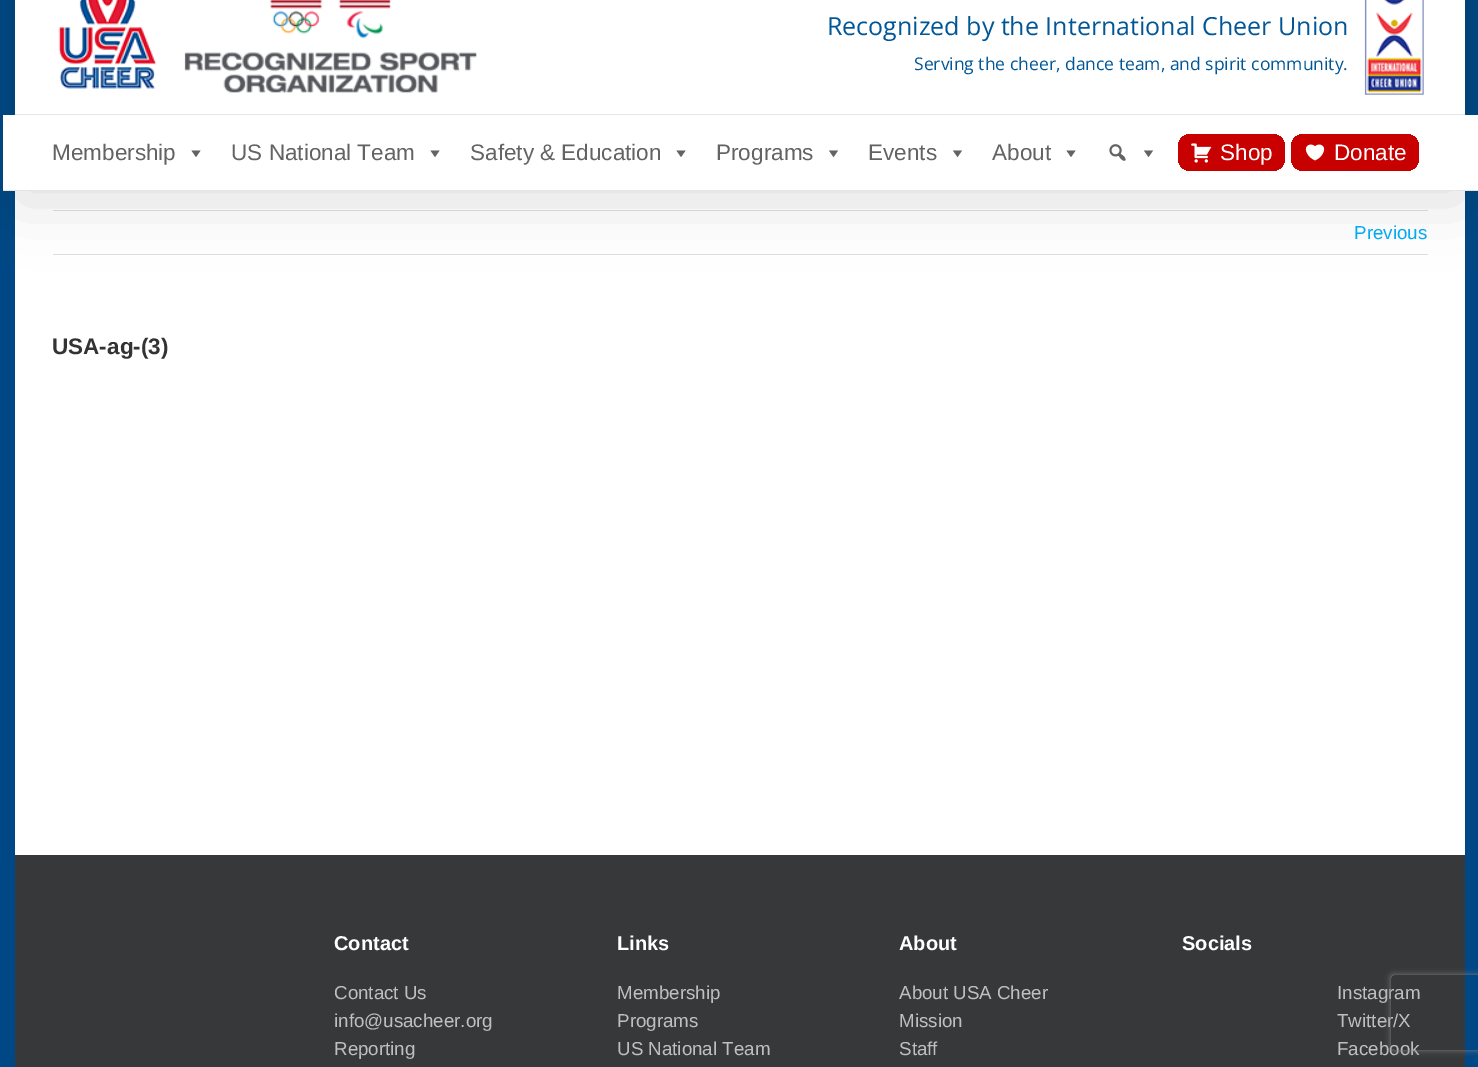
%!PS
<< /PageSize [1478 1067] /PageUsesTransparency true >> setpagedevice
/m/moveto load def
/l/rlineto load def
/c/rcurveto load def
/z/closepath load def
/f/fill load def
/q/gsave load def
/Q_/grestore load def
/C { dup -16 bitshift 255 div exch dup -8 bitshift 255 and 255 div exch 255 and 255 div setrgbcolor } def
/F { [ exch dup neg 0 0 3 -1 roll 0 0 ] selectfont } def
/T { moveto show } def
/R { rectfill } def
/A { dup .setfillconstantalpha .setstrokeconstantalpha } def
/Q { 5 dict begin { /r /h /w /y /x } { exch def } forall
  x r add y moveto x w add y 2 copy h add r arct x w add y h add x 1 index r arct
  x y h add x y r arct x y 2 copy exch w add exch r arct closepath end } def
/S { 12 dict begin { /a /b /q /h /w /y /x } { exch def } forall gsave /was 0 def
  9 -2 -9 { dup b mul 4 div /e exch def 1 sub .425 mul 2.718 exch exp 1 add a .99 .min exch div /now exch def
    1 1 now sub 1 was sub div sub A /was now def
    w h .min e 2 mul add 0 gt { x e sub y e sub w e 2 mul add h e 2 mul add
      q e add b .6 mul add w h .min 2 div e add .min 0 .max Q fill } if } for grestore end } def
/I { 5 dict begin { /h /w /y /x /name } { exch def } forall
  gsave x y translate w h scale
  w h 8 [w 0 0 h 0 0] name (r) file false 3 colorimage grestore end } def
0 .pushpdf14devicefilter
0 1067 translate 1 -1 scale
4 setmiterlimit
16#004785 C
0 0 1478 1067 R
16#FFFFFF C
15 191 1450 664 R
16#E0DEDE C
53 210 1375 1 R
53 254 1375 1 R
16#000000 C
18 -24 1445 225 0 31 .14 S
16#FFFFFF C
15 0 1450 114 R
/OpenSans-Regular 25 F
16#005696 C
(Recognized by the International Cheer Union) 827 35 T
(1.rgb) 1364 0 60 95 I
/OpenSans-Regular 17.5 F
(Serving the cheer, dance team, and spirit community.) 914 70 T
16#E5E5E5 C
15 114 1450 1 R
(2.rgb) 58 0 419 93 I
16#FFFFFF C
3 115 1475 75 R
16#E5E5E5 C
3 190 1475 1 R
/LiberationSans-Regular 22.5 F
16#636363 C
(Membership) 52 160 T
200.5 150.5 m -4.5 6.5 l -4.5 -6.5 l z f
(US National Team) 231 160 T
439.5 150.5 m -4.5 6.5 l -4.5 -6.5 l z f
(Safety & Education) 470 160 T
685.5 150.5 m -4.5 6.5 l -4.5 -6.5 l z f
(Programs) 716 160 T
838 150.5 m -4.5 6.5 l -4.5 -6.5 l z f
(Events) 868 160 T
962 150.5 m -4.5 6.5 l -4.5 -6.5 l z f
(About) 992 160 T
1075.5 150.5 m -4.5 6.5 l -4.5 -6.5 l z f
(3.rgb) 1109 144 17 17 I
1153 150.5 m -4.5 6.5 l -4.5 -6.5 l z f
q 1178 134 107 37 13 Q clip newpath
<< /ShadingType 2 /ColorSpace /DeviceRGB /Coords [1231 134 1231 171] /Extend [true true] /Function << /FunctionType 2 /Domain [0 1] /C0 [.788 0 0] /C1 [.78 0 0] /N 1 >> >> shfill Q_
(4.rgb) 1191 143 21 20 I
16#FFFFFF C
(Shop) 1220 160 T
q 1291 134 128 37 13 Q clip newpath
<< /ShadingType 2 /ColorSpace /DeviceRGB /Coords [1355 134 1355 171] /Extend [true true] /Function << /FunctionType 2 /Domain [0 1] /C0 [.788 0 0] /C1 [.78 0 0] /N 1 >> >> shfill Q_
(5.rgb) 1305 144 20 17 I
(Donate) 1334 160 T
/LiberationSans-Regular 18.75 F
16#03A9F4 C
(Previous) 1354 239 T
/LiberationSans-Bold 22.5 F
16#333333 C
(USA-ag-\(3\)) 52 354 T
16#363839 C
15 855 1450 212 R
/LiberationSans-Bold 20 F
16#FFFFFF C
(Contact) 334 950 T
/LiberationSans-Regular 18.75 F
16#BFBFBF C
(Contact Us) 334 999 T
(info@usacheer.org) 334 1027 T
(Reporting) 334 1055 T
/LiberationSans-Bold 20 F
16#FFFFFF C
(Links) 617 950 T
/LiberationSans-Regular 18.75 F
16#BFBFBF C
(Membership) 617 999 T
(Programs) 617 1027 T
(US National Team) 617 1055 T
/LiberationSans-Bold 20 F
16#FFFFFF C
(About) 899 950 T
/LiberationSans-Regular 18.75 F
16#BFBFBF C
(About USA Cheer) 899 999 T
(Mission) 899 1027 T
(Staff) 899 1055 T
/LiberationSans-Bold 20 F
16#FFFFFF C
(Socials) 1182 950 T
/LiberationSans-Regular 18.75 F
16#BFBFBF C
(Instagram) 1337 999 T
(Twitter/X) 1337 1027 T
(Facebook) 1337 1055 T
q
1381 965 m 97 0 l 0 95 l -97 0 l z 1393.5 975 m 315 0 l 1.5 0 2.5 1 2.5 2.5 c 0 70 l 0 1.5 -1 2.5 -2.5 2.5 c -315 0 l -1.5 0 -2.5 -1 -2.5 -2.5 c 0 -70 l 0 -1.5 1 -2.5 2.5 -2.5 c z eoclip newpath
16#808080 C
1391 975 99 75 2.5 3 1 S
Q_
.poppdf14devicefilter showpage
